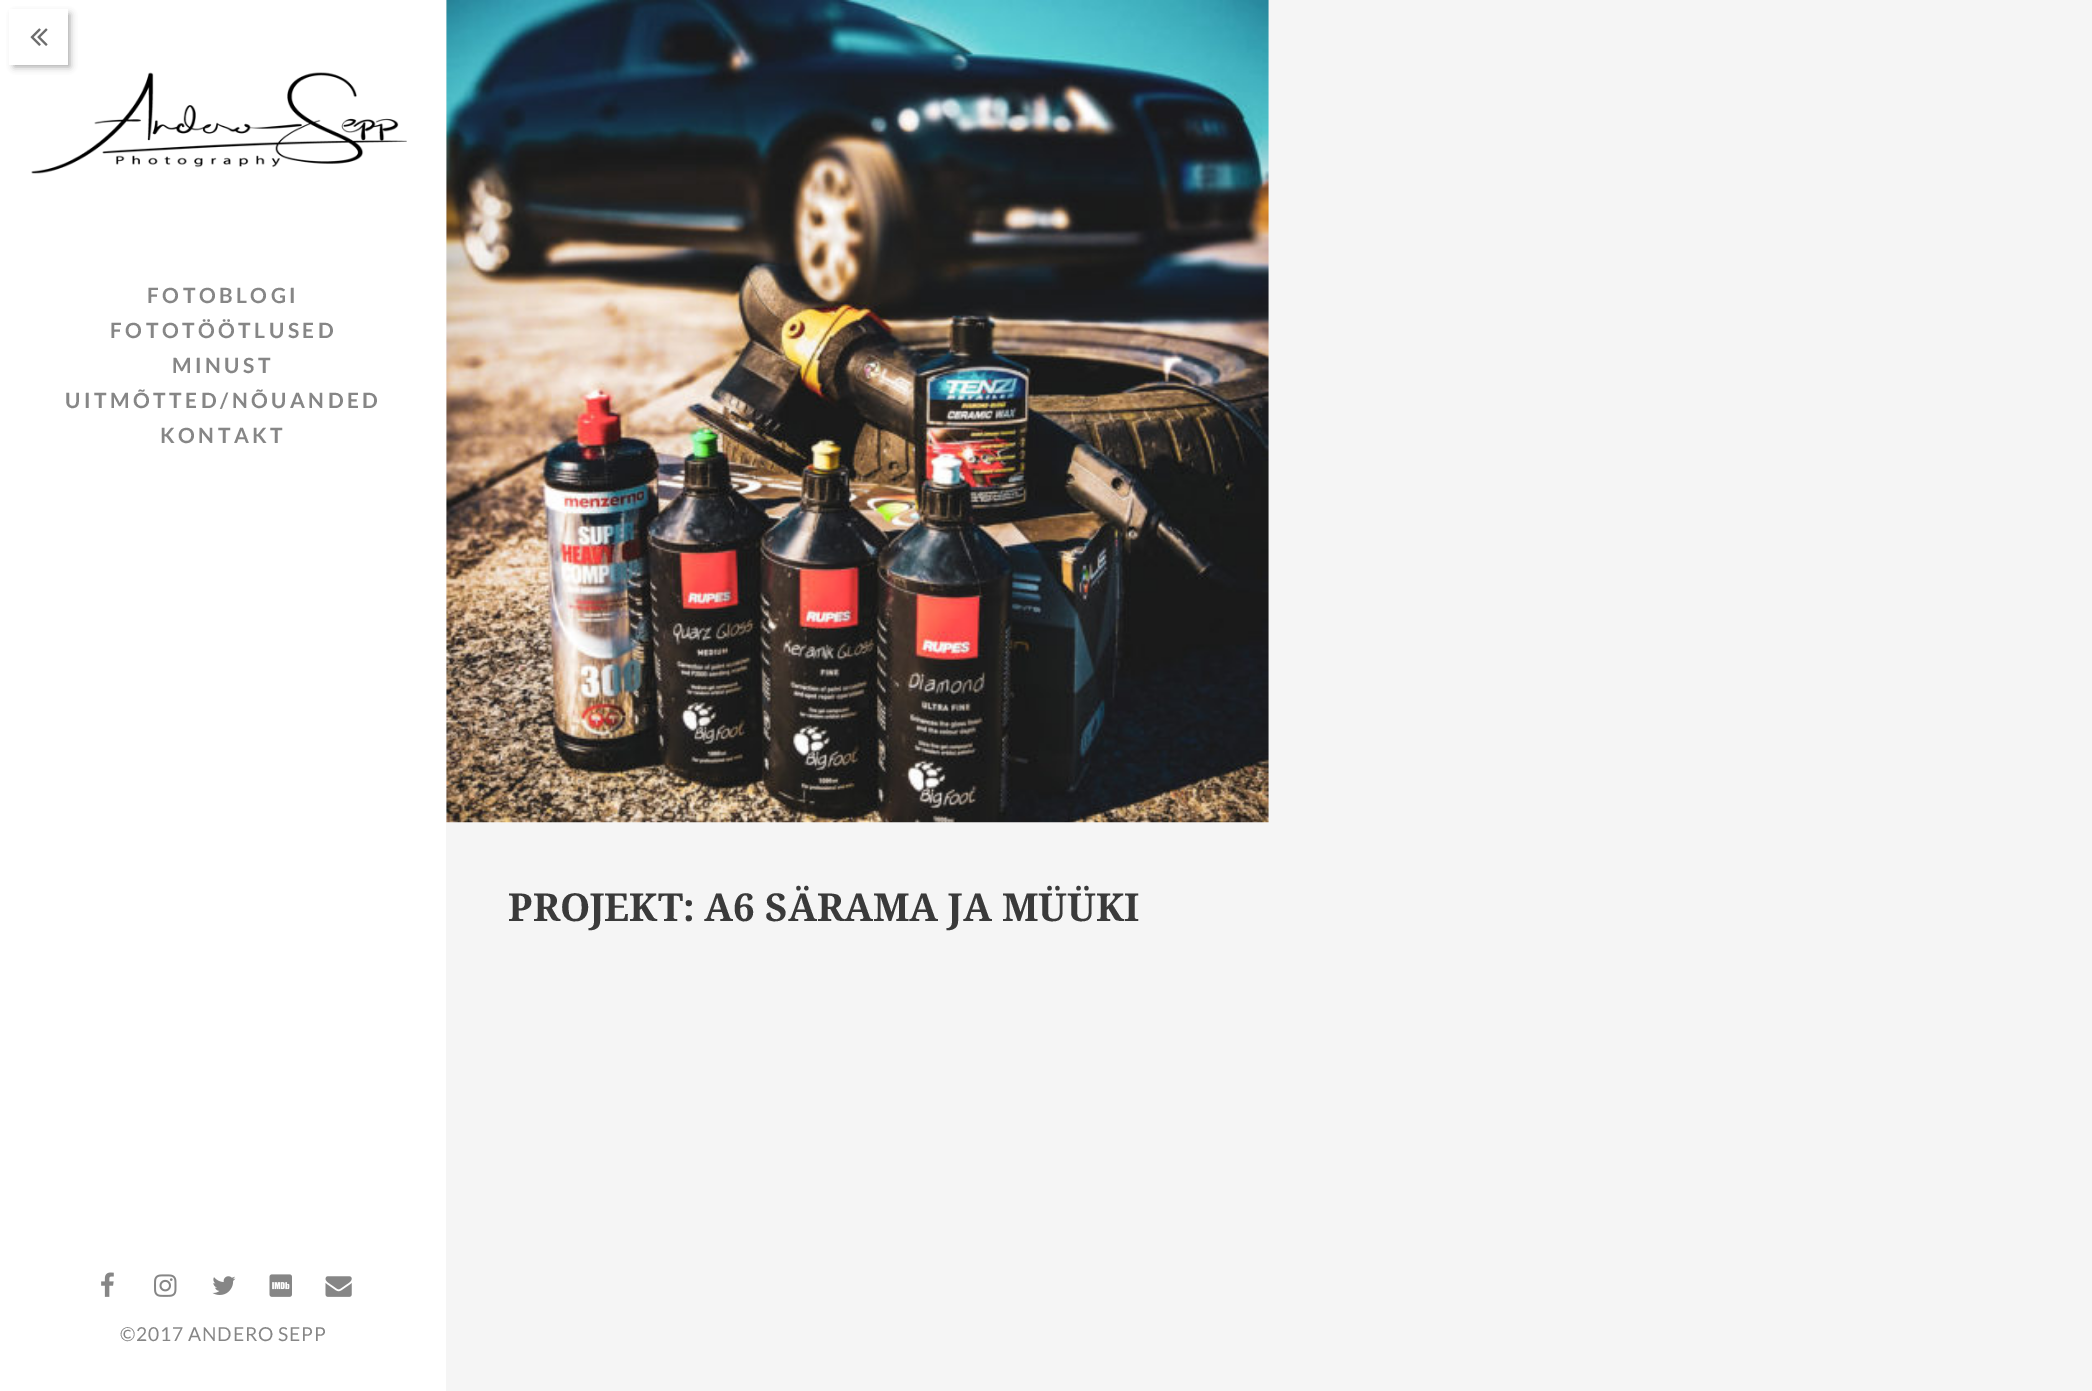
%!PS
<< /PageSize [2092 1391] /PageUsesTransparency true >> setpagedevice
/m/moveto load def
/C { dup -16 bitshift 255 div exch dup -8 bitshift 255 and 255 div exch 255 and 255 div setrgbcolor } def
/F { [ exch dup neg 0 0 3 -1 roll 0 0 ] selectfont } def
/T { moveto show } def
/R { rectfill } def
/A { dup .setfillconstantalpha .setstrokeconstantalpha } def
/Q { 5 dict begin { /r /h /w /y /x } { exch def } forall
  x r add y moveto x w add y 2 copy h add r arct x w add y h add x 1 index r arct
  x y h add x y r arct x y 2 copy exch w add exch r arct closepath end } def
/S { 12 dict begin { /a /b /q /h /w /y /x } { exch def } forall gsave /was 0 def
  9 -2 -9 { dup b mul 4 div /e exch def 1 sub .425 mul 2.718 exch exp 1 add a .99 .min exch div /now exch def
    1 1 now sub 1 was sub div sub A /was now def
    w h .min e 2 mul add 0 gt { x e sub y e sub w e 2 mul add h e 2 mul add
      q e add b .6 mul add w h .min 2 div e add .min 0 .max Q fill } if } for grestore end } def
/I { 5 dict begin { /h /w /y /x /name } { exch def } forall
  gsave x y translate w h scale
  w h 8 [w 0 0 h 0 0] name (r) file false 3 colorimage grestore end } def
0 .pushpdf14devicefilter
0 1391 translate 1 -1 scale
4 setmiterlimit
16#F5F5F5 C
0 0 2092 1391 R
16#FFFFFF C
0 0 446 1391 R
(2.rgb) 31 72 376 102 I
16#A8A8A8 C
14 14 56 53 0 3.5 1 S
16#FFFFFF C
9 9 59 56 R
(1.rgb) 30 28 18 18 I
/Lato-Bold 21 F
16#868686 C
147 303 m 3.5 0 (FOTOBLOGI) ashow
110 338 m 3.5 0 (FOTOTÖÖTLUSED) ashow
172 373 m 3.5 0 (MINUST) ashow
65 408 m 3.5 0 (UITMÕTTED/NÕUANDED) ashow
160 443 m 3.5 0 (KONTAKT) ashow
(3.rgb) 446 0 823 823 I
/DroidSerif-Bold 38.5 F
16#3A3A3A C
(PROJEKT: A6 SÄRAMA JA MÜÜKI) 508 921 T
(4.rgb) 101 1272 13 25 I
(5.rgb) 154 1274 23 23 I
(6.rgb) 212 1276 24 19 I
(7.rgb) 269 1274 23 23 I
(8.rgb) 325 1276 27 21 I
/Lato-Regular 19.25 F
16#868686 C
120 1341 m .75 0 (©2017 ANDERO SEPP) ashow
.poppdf14devicefilter showpage
